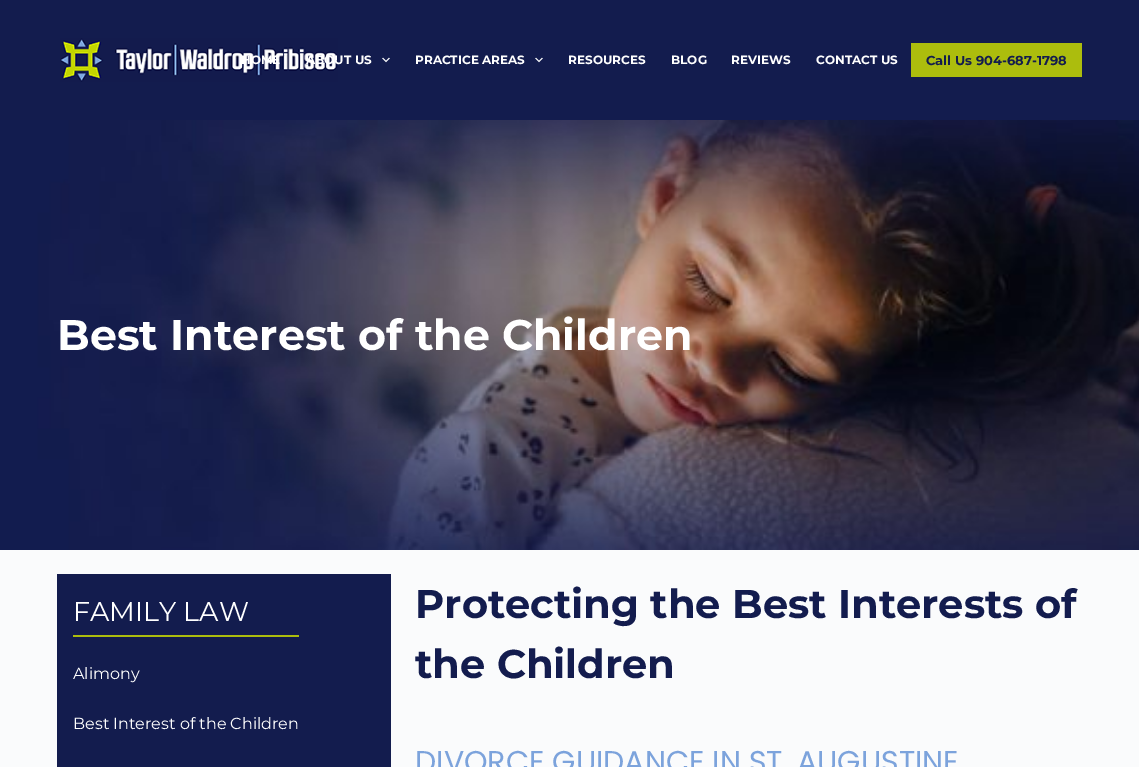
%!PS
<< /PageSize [1139 767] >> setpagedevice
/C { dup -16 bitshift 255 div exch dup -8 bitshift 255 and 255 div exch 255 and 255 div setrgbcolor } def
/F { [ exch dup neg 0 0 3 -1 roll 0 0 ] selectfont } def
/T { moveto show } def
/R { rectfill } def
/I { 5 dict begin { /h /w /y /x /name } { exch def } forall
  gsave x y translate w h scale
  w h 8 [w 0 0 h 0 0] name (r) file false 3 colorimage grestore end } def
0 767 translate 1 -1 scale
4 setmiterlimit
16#FAFBFC C
0 0 1139 767 R
16#131C4E C
0 0 1139 120 R
(1.rgb) 60 38 278 44 I
/Montserrat-Bold 12 F
16#FFFFFF C
(HOME) 241 64 T
(ABOUT US) 306 64 T
(2.rgb) 382 57 8 6 I
(PRACTICE AREAS) 415 64 T
(2.rgb) 535 57 8 6 I
(RESOURCES) 568 64 T
(BLOG) 671 64 T
(REVIEWS) 731 64 T
(CONTACT US) 816 64 T
16#ACBD0D C
911 43 171 34 R
/Montserrat-Bold 13 F
16#131C4E C
(Call Us 904-687-1798) 926 65 T
(3.rgb) 0 120 1139 430 I
/Montserrat-Bold 42.75 F
16#FFFFFF C
(Best Interest of the Children) 57 350 T
16#131C4E C
57 574 334 193 R
/Montserrat-Regular 27 F
16#FFFFFF C
(FAMILY LAW) 73 621 T
16#ACBD0D C
73 635 226 2 R
/Montserrat-Regular 16 F
16#FFFFFF C
(Alimony) 73 679 T
(Best Interest of the Children) 73 729 T
/Montserrat-Bold 40 F
16#131C4E C
(Protecting the Best Interests of) 415 618 T
(the Children) 415 678 T
/Poppins-Regular 30 F
16#7CA3DC C
(DIVORCE GUIDANCE IN ST. AUGUSTINE) 415 772 T
showpage
